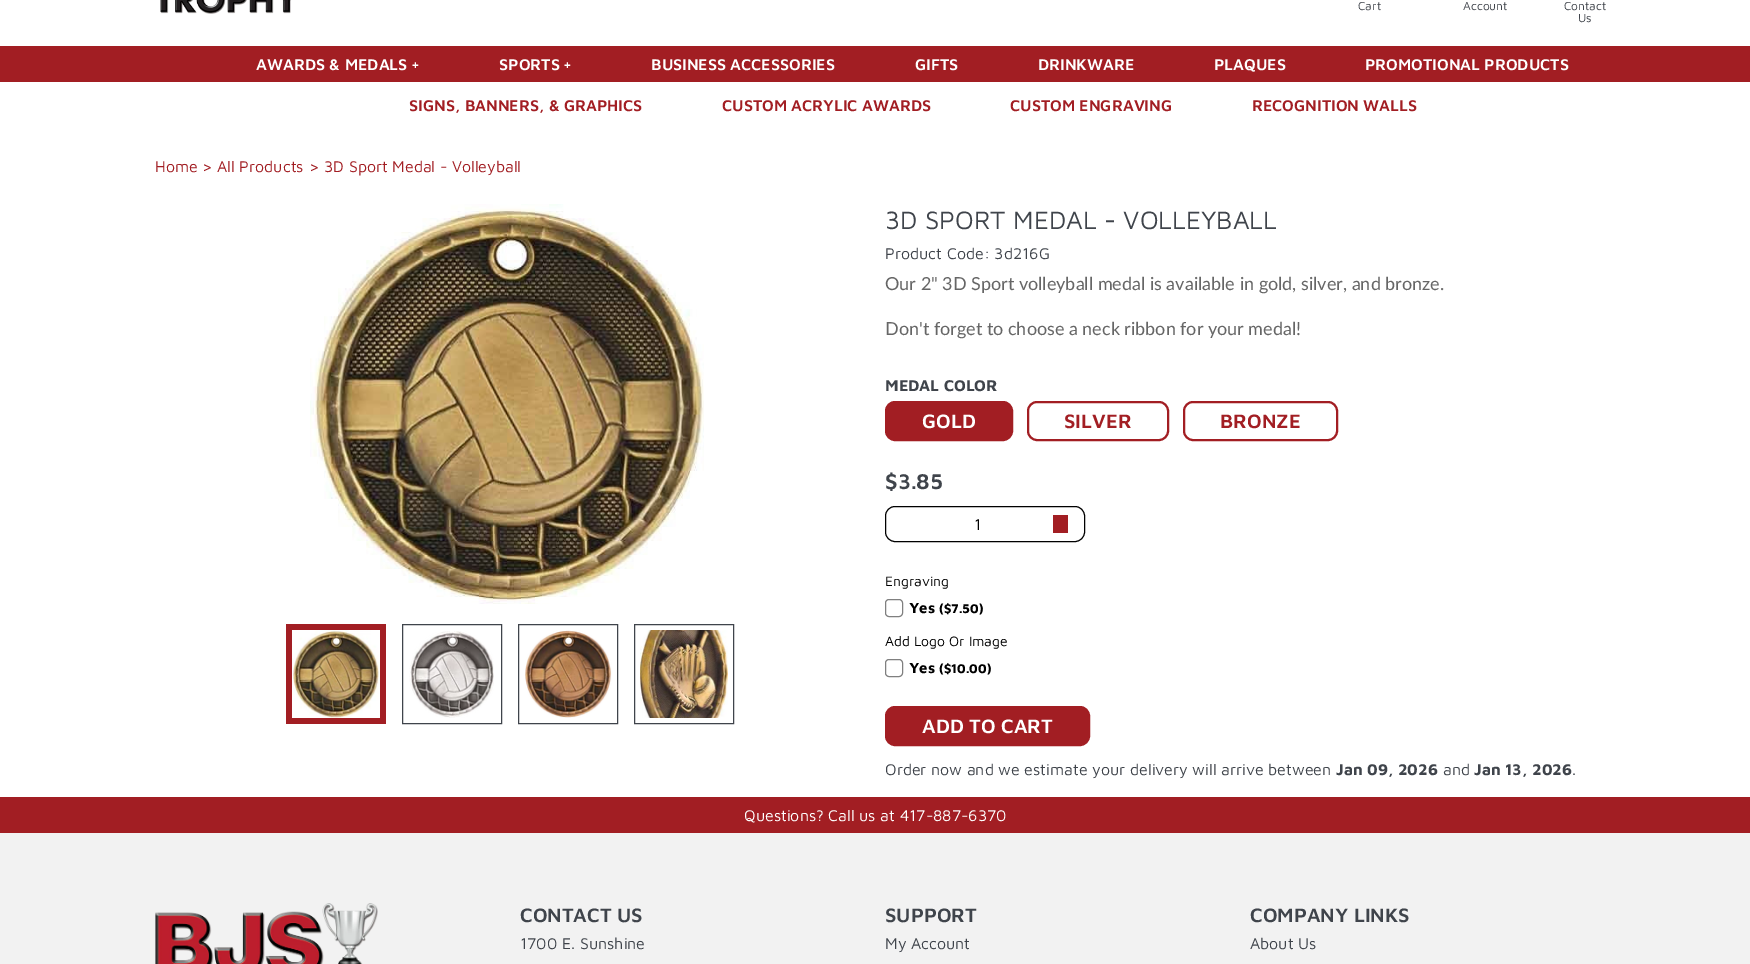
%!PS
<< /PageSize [1750 964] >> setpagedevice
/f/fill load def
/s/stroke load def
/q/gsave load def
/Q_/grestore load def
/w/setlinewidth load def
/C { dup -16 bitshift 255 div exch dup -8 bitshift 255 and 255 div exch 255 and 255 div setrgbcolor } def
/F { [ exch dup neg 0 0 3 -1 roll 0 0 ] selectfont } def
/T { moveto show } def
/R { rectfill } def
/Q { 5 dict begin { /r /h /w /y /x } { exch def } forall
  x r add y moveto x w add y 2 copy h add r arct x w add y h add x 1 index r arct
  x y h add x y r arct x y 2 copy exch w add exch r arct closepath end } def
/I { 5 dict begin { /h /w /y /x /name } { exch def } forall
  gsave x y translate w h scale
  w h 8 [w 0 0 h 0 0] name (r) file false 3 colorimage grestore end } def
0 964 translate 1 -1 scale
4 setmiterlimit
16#FFFFFF C
0 0 1750 964 R
(1.rgb) 160 0 131 14 I
/MavenPro-Regular 12 F
16#3F444B C
(Cart) 1358 10 T
(Account) 1463 10 T
(Contact) 1564 10 T
(Us) 1578 22 T
16#A21E23 C
0 46 1750 36 R
/MavenPro-SemiBold 16 F
16#FFFFFF C
(AWARDS & MEDALS) 256 70 T
(+) 411 70 T
(SPORTS) 499 70 T
(+) 563 70 T
(BUSINESS ACCESSORIES) 651 70 T
(GIFTS) 915 70 T
(DRINKWARE) 1038 70 T
(PLAQUES) 1214 70 T
(PROMOTIONAL PRODUCTS) 1365 70 T
16#A21E23 C
(SIGNS, BANNERS, & GRAPHICS) 409 111 T
(CUSTOM ACRYLIC AWARDS) 722 111 T
(CUSTOM ENGRAVING) 1010 111 T
(RECOGNITION WALLS) 1252 111 T
/MavenPro-Regular 16 F
(Home) 155 172 T
(> All Products) 202 172 T
(> 3D Sport Medal - Volleyball) 309 172 T
(2.rgb) 310 204 394 400 I
286 624 100 100 R
(3.rgb) 292 630 88 88 I
16#3F444B C
402.5 624.5 99 99 rectstroke
(4.rgb) 409 631 85 87 I
518.5 624.5 99 99 rectstroke
(5.rgb) 525 630 87 88 I
634.5 624.5 99 99 rectstroke
(6.rgb) 640 630 88 88 I
/MavenPro-Regular 26 F
(3D SPORT MEDAL - VOLLEYBALL) 885 229 T
/MavenPro-Regular 16 F
(Product Code: 3d216G) 885 259 T
/Lato-Regular 18 F
16#666666 C
(Our 2" 3D Sport volleyball medal is available in gold, silver, and bronze.) 885 290 T
(Don't forget to choose a neck ribbon for your medal!) 885 335 T
/MavenPro-Bold 16 F
16#3F444B C
(MEDAL COLOR) 885 391 T
16#A21E23 C
886 402 126 38 9 Q q f Q_
2 w
s
/MavenPro-SemiBold 20 F
16#FFFFFF C
(GOLD) 922 428 T
16#A21E23 C
1028 402 140 38 9 Q s
(SILVER) 1064 428 T
1184 402 153 38 9 Q s
(BRONZE) 1220 428 T
/MavenPro-SemiBold 22 F
16#3F444B C
($3.85) 885 489 T
16#000000 C
1 w
885.5 506.5 199 35 9.5 Q s
/MavenPro-Regular 16 F
(1) 974 530 T
16#A21E23 C
1053 515 15 18 R
/MavenPro-Regular 14 F
16#000000 C
(Engraving) 885 586 T
16#808080 C
885.5 599.5 17 17 3.5 Q s
/MavenPro-Bold 15 F
16#000000 C
(Yes) 909 613 T
/MavenPro-Bold 13 F
(\($7.50\)) 939 613 T
/MavenPro-Regular 14 F
(Add Logo Or Image) 885 646 T
16#808080 C
885.5 659.5 17 17 3.5 Q s
/MavenPro-Bold 15 F
16#000000 C
(Yes) 909 673 T
/MavenPro-Bold 13 F
(\($10.00\)) 939 673 T
16#A21E23 C
886 707 203 38 9 Q q f Q_
2 w
s
/MavenPro-SemiBold 20 F
16#FFFFFF C
(ADD TO CART) 922 733 T
/MavenPro-Regular 16 F
16#3F444B C
(Order now and we estimate your delivery will arrive between) 885 775 T
/MavenPro-Bold 16 F
(Jan 09, 2026) 1336 775 T
/MavenPro-Regular 16 F
(and) 1443 775 T
/MavenPro-Bold 16 F
(Jan 13, 2026) 1474 775 T
/MavenPro-Regular 16 F
(.) 1572 775 T
16#A21E23 C
0 797 1750 36 R
16#FFFFFF C
(Questions? Call us at 417-887-6370) 744 821 T
16#F2F2F2 C
0 833 1750 131 R
(7.rgb) 155 903 223 61 I
/MavenPro-SemiBold 20 F
16#3F444B C
(CONTACT US) 520 922 T
/MavenPro-Regular 16 F
(1700 E. Sunshine) 520 949 T
/MavenPro-SemiBold 20 F
(SUPPORT) 885 922 T
/MavenPro-Regular 16 F
(My Account) 885 949 T
/MavenPro-SemiBold 20 F
(COMPANY LINKS) 1250 922 T
/MavenPro-Regular 16 F
(About Us) 1250 949 T
showpage
